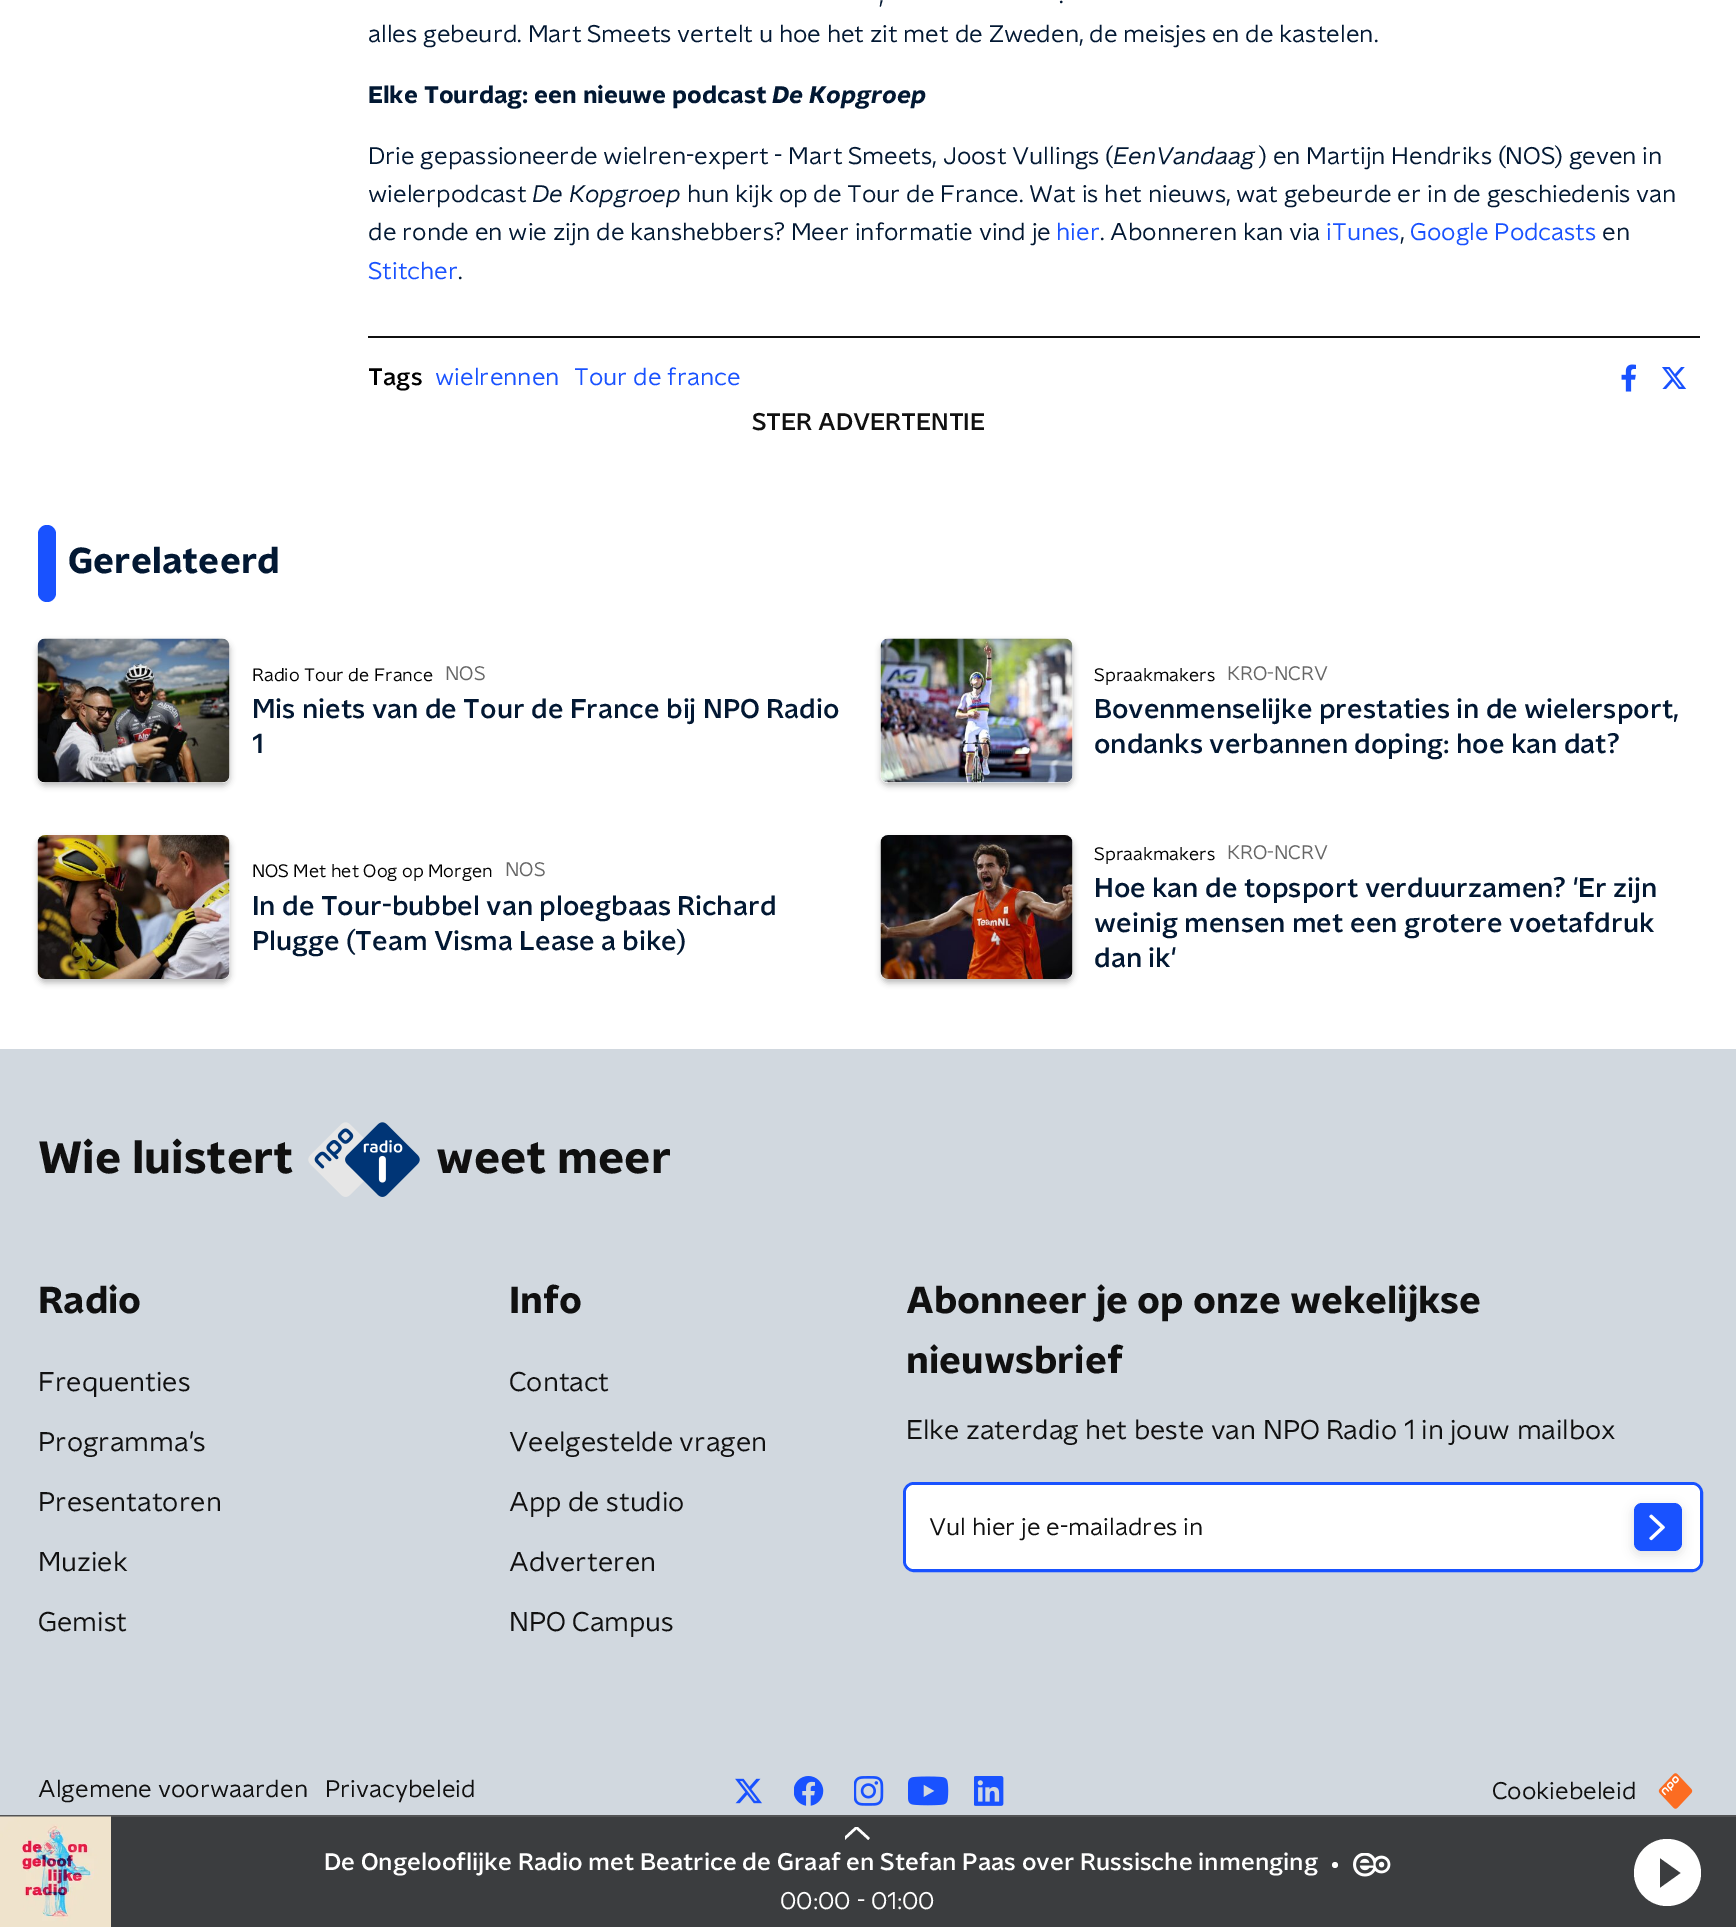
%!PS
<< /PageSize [1736 1927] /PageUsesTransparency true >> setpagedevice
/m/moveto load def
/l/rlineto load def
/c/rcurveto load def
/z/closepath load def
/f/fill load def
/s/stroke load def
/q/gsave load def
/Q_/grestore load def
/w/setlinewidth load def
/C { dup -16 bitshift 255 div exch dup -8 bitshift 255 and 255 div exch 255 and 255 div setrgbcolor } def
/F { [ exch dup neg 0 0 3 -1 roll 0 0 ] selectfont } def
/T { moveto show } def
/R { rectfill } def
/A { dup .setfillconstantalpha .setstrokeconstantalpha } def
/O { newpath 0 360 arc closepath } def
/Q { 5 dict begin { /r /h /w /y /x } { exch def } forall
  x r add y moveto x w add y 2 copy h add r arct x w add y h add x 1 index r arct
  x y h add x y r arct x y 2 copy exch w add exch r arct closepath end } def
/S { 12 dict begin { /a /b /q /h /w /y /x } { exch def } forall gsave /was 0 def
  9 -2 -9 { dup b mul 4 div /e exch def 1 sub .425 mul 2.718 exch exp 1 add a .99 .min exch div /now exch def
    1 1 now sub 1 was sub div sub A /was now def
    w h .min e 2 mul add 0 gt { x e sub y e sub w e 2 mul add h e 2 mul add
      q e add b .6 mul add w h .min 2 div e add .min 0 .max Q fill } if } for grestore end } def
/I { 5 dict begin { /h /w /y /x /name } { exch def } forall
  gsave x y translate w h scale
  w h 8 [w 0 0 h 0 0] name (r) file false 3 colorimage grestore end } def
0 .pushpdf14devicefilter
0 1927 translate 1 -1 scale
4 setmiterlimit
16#FFFFFF C
0 0 1736 1927 R
/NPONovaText-Regular 24 F
16#021833 C
(,) 879 3 T
(.) 1059 3 T
(alles gebeurd. Mart Smeets vertelt u hoe het zit met de Zweden, de meisjes en de kastelen.) 368 42 T
/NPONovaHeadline-Bold 24 F
(Elke Tourdag: een nieuwe podcast) 368 103 T
/NPONovaHeadline-BoldItalic 24 F
(De Kopgroep) 772 103 T
/NPONovaText-Regular 24 F
(Drie gepassioneerde wielren-expert - Mart Smeets, Joost Vullings \() 368 164 T
/NPONovaText-Italic 24 F
(EenVandaag) 1113 164 T
/NPONovaText-Regular 24 F
(\) en Martijn Hendriks \(NOS\) geven in) 1259 164 T
(wielerpodcast) 368 202 T
/NPONovaText-Italic 24 F
(De Kopgroep) 532 202 T
/NPONovaText-Regular 24 F
(hun kijk op de Tour de France. Wat is het nieuws, wat gebeurde er in de geschiedenis van) 687 202 T
(de ronde en wie zijn de kanshebbers? Meer informatie vind je) 368 240 T
16#1952FF C
(hier) 1056 240 T
16#021833 C
(. Abonneren kan via) 1100 240 T
16#1952FF C
(iTunes) 1326 240 T
16#021833 C
(,) 1400 240 T
16#1952FF C
(Google Podcasts) 1410 240 T
16#021833 C
(en) 1602 240 T
16#1952FF C
(Stitcher) 368 279 T
16#021833 C
(.) 458 279 T
16#101010 C
368 336 1332 2 R
/NPONovaText-Medium 24 F
16#000000 C
(Tags) 368 385 T
/NPONovaText-Regular 24 F
16#1952FF C
(wielrennen) 435 385 T
(Tour de france) 574 385 T
(1.rgb) 1621 364 15 28 I
(2.rgb) 1662 367 25 22 I
/NPONovaText-Medium 24 F
16#101010 C
(STER ADVERTENTIE) 752 430 T
16#1952FF C
38 525 18 77 9 Q f
/NPONovaHeadline-Bold 36 F
16#021833 C
(Gerelateerd) 68 573 T
16#000000 C
38 642 192 144 8 3 .25 S
(3.rgb) 37 638 193 145 I
/NPONovaText-Regular 18 F
(Radio Tour de France) 252 681 T
/NPONovaText-Regular 19.5 F
16#666666 C
(NOS) 445 680 T
/NPONovaText-Medium 27 F
16#021833 C
(Mis niets van de Tour de France bij NPO Radio) 252 718 T
(1) 252 753 T
16#000000 C
881 642 192 144 8 3 .25 S
(4.rgb) 880 638 193 145 I
/NPONovaText-Regular 18 F
(Spraakmakers) 1094 681 T
/NPONovaText-Regular 19.5 F
16#666666 C
(KRO-NCRV) 1227 680 T
/NPONovaText-Medium 27 F
16#021833 C
(Bovenmenselijke prestaties in de wielersport,) 1094 718 T
(ondanks verbannen doping: hoe kan dat?) 1094 753 T
16#000000 C
38 839 192 144 8 3 .25 S
(5.rgb) 37 835 193 144 I
/NPONovaText-Regular 18 F
(NOS Met het Oog op Morgen) 252 877 T
/NPONovaText-Regular 19.5 F
16#666666 C
(NOS) 505 876 T
/NPONovaText-Medium 27 F
16#021833 C
(In de Tour-bubbel van ploegbaas Richard) 252 915 T
(Plugge \(Team Visma Lease a bike\)) 252 950 T
16#000000 C
881 839 192 144 8 3 .25 S
(6.rgb) 880 835 193 144 I
/NPONovaText-Regular 18 F
(Spraakmakers) 1094 860 T
/NPONovaText-Regular 19.5 F
16#666666 C
(KRO-NCRV) 1227 859 T
/NPONovaText-Medium 27 F
16#021833 C
(Hoe kan de topsport verduurzamen? 'Er zijn) 1094 897 T
(weinig mensen met een grotere voetafdruk) 1094 932 T
(dan ik') 1094 967 T
16#D1D8DF C
0 1049 1736 766 R
/NPONovaHeadline-Bold 45 F
16#101010 C
(Wie luistert) 38 1173 T
(7.rgb) 308 1122 112 75 I
(weet meer) 436 1173 T
/NPONovaHeadline-Bold 37.5 F
(Radio) 38 1313 T
/NPONovaText-Regular 27 F
(Frequenties) 38 1391 T
(Programma's) 38 1451 T
(Presentatoren) 38 1511 T
(Muziek) 38 1571 T
(Gemist) 38 1631 T
/NPONovaHeadline-Bold 37.5 F
(Info) 509 1313 T
/NPONovaText-Regular 27 F
(Contact) 509 1391 T
(Veelgestelde vragen) 509 1451 T
(App de studio) 509 1511 T
(Adverteren) 509 1571 T
(NPO Campus) 509 1631 T
/NPONovaHeadline-Bold 37.5 F
(Abonneer je op onze wekelijkse) 906 1313 T
(nieuwsbrief) 906 1373 T
/NPONovaText-Regular 27 F
(Elke zaterdag het beste van NPO Radio 1 in jouw mailbox) 906 1439 T
16#1952FF C
3 w
904.5 1483.5 797 87 9.5 Q s
16#FFFFFF C
906 1485 794 84 8 Q f
/NPONovaText-Regular 24 F
16#101010 C
(Vul hier je e-mailadres in) 929 1535 T
16#000000 C
1632 1505 51 51 9 5 .1 S
16#1952FF C
1634 1503 48 48 8 Q f
(8.rgb) 1649 1514 16 27 I
16#101010 C
(Algemene voorwaarden) 38 1797 T
(Privacybeleid) 325 1797 T
(9.rgb) 735 1778 27 26 I
(10.rgb) 794 1776 30 30 I
(11.rgb) 854 1776 30 30 I
(12.rgb) 908 1776 41 30 I
(13.rgb) 974 1776 30 30 I
(Cookiebeleid) 1492 1799 T
(14.rgb) 1658 1773 35 36 I
16#3B3D3F C
111 1817 1625 110 R
16#525354 C
0 1815 1736 2 R
(15.rgb) 0 1816 111 111 I
q
845 1827 27 14 rectclip
16#FFFFFF C
2.5 w
869 1839 m -12.5 -11.5 l -12.5 11.5 l s
Q_
/NPONovaText-Medium 24 F
16#FFFFFF C
(De Ongelooflijke Radio met Beatrice de Graaf en Stefan Paas over Russische inmenging) 324 1870 T
1335 1865 3 O f
(16.rgb) 1353 1853 38 24 I
/NPONovaText-Regular 24 F
(00:00 - 01:00) 780 1909 T
1667 1839 m -18 0 -33 15 -33 34 c 0 18 15 33 33 33 c 19 0 34 -15 34 -33 c 0 -19 -15 -34 -34 -34 c z 1660 1888 m 0 -30 l 21 15 l z f
.poppdf14devicefilter showpage
